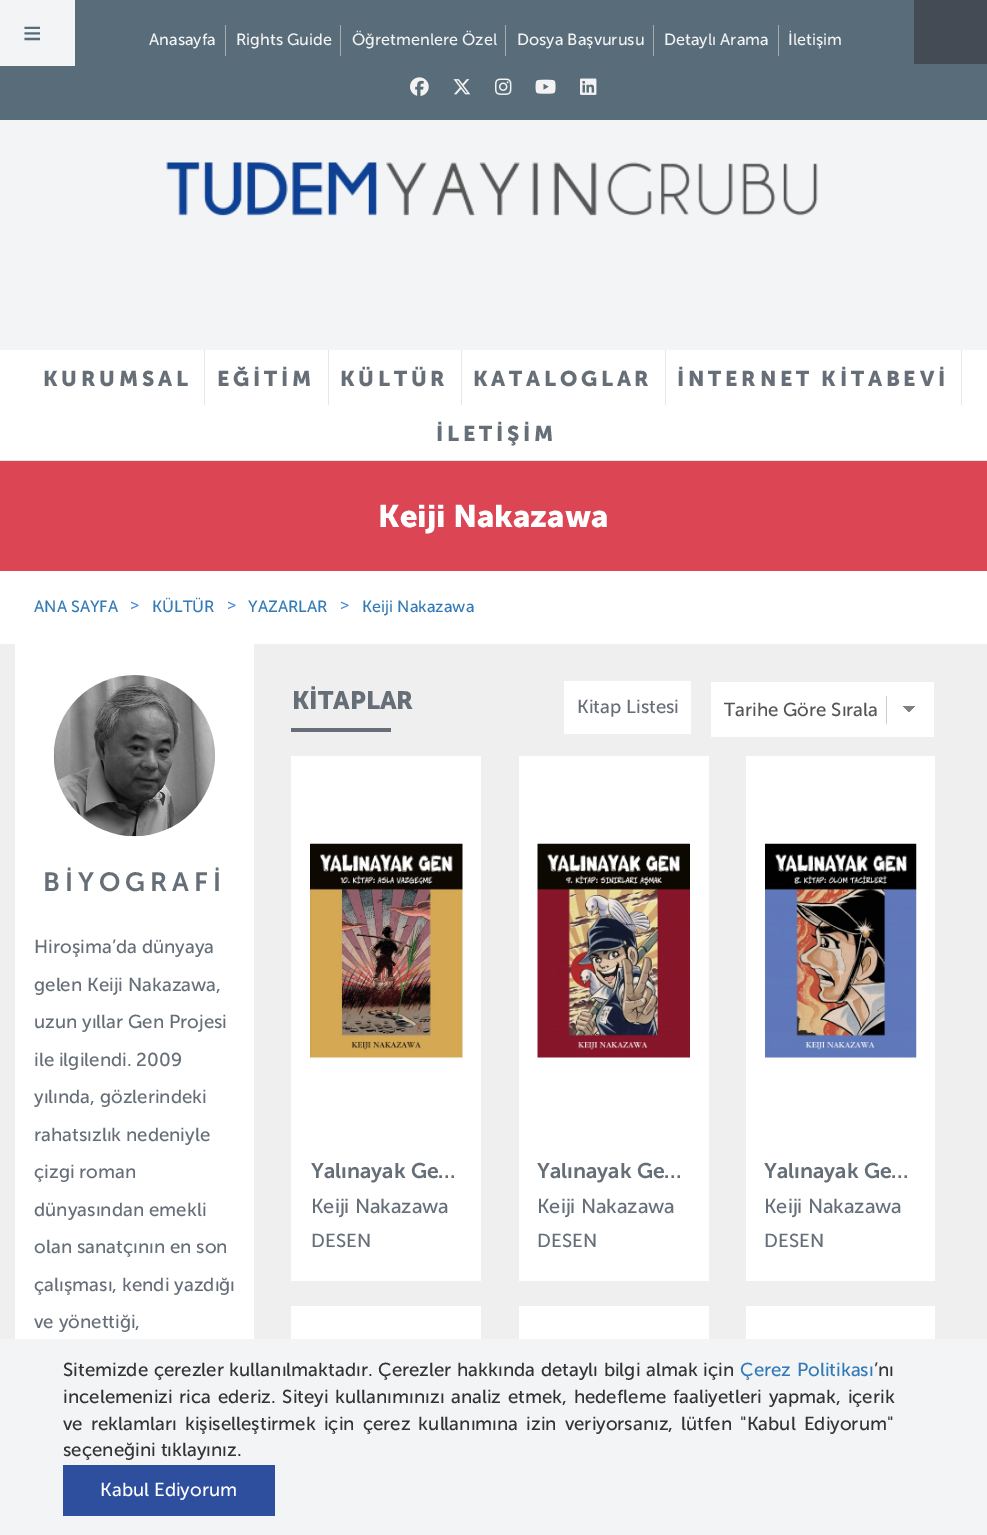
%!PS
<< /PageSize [987 1535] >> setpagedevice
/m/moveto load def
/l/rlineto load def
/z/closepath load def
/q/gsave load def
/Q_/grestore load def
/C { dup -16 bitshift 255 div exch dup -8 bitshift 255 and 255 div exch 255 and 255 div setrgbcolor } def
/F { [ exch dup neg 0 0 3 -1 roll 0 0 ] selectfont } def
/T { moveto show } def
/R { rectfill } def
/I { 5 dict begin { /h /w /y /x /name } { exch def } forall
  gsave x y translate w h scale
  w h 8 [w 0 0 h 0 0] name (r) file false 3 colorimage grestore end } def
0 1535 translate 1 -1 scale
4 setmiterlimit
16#FFFFFF C
0 0 987 1535 R
16#586D79 C
0 0 987 120 R
16#444B54 C
914 0 73 64 R
(1.rgb) 410 77 19 19 I
(2.rgb) 453 79 18 16 I
(3.rgb) 495 78 17 17 I
(4.rgb) 535 79 21 15 I
(5.rgb) 580 78 17 17 I
16#F2F4F5 C
0 0 75 66 R
/LiberationSans-Bold 32 F
16#586D79 C
23 44 m 9 0 (≡) ashow
16#AAAAAA C
225 25 1 31 R
/MuseoSans-Regular 16.25 F
16#F3F3F4 C
(Anasayfa) 149 45 T
16#AAAAAA C
340 25 1 31 R
16#F3F3F4 C
(Rights Guide) 236 45 T
16#AAAAAA C
505 25 1 31 R
16#F3F3F4 C
(Öğretmenlere Özel) 352 45 T
16#AAAAAA C
653 25 1 31 R
16#F3F3F4 C
(Dosya Başvurusu) 517 45 T
16#AAAAAA C
778 25 1 31 R
16#F3F3F4 C
(Detaylı Arama) 664 45 T
(İletişim) 788 45 T
16#F2F4F5 C
0 120 987 230 R
(6.rgb) 166 162 652 54 I
16#E3E7EB C
0 460 987 1 R
204 350 1 55 R
/MuseoSans-Bold 21.25 F
16#666E78 C
43 386 m 3.75 0 (KURUMSAL) ashow
16#E3E7EB C
328 350 1 55 R
16#666E78 C
217 386 m 3.75 0 (EĞİTİM) ashow
16#E3E7EB C
461 350 1 55 R
16#666E78 C
340 386 m 3.75 0 (KÜLTÜR) ashow
16#E3E7EB C
665 350 1 55 R
16#666E78 C
473 386 m 3.75 0 (KATALOGLAR) ashow
16#E3E7EB C
961 350 1 55 R
16#666E78 C
677 386 m 3.75 0 (İNTERNET KİTABEVİ) ashow
436 441 m 3.75 0 (İLETİŞİM) ashow
16#DB4554 C
0 461 987 110 R
/MuseoSans-Bold 31.25 F
16#FFFFFF C
(Keiji Nakazawa) 378 527 T
/MuseoSans-Regular 16.25 F
16#337AB7 C
(ANA SAYFA) 34 612 T
16#4988DC C
(>) 130 610 T
16#337AB7 C
(KÜLTÜR) 152 612 T
16#4988DC C
(>) 227 610 T
16#337AB7 C
(YAZARLAR) 248 612 T
16#4988DC C
(>) 340 610 T
16#337AB7 C
(Keiji Nakazawa) 362 612 T
16#EFEFEF C
0 644 987 695 R
16#FFFFFF C
15 644 239 695 R
(7.rgb) 53 675 162 162 I
/MuseoSans-SemiBold 26.25 F
16#666E78 C
43 891 m 5 0 (BİYOGRAFİ) ashow
/MuseoSans-Regular 18.75 F
(Hiroşima’da dünyaya) 34 953 T
(gelen Keiji Nakazawa,) 34 991 T
(uzun yıllar Gen Projesi) 34 1028 T
(ile ilgilendi. 2009) 34 1066 T
(yılında, gözlerindeki) 34 1103 T
(rahatsızlık nedeniyle) 34 1141 T
(çizgi roman) 34 1178 T
(dünyasından emekli) 34 1216 T
(olan sanatçının en son) 34 1253 T
(çalışması, kendi yazdığı) 34 1291 T
(ve yönettiği,) 34 1328 T
/MuseoSans-Bold 25 F
(KİTAPLAR) 292 709 T
16#686E77 C
291 728 100 4 R
16#FFFFFF C
564 681 127 53 R
/MuseoSans-Regular 18.75 F
16#666E78 C
(Kitap Listesi) 577 713 T
16#FFFFFF C
711 682 223 55 R
16#CCCCCC C
886 696 1 28 R
q 909 706 m 6 0 l 0 7 l -6 0 l z clip newpath
<< /ShadingType 2 /ColorSpace /DeviceRGB /Coords [909 706 915 713] /Extend [true true] /Function << /FunctionType 3 /Domain [0 1] /Functions [<< /FunctionType 2 /Domain [0 1] /C0 [.502 .502 .502] /C1 [.502 .502 .502] /N 1 >> << /FunctionType 2 /Domain [0 1] /C0 [1 1 1] /C1 [1 1 1] /N 1 >>] /Bounds [.5] /Encode [0 1 0 1] >> >> shfill Q_
q 903 706 m 6 0 l 0 7 l -6 0 l z clip newpath
<< /ShadingType 2 /ColorSpace /DeviceRGB /Coords [903 713 909 706] /Extend [true true] /Function << /FunctionType 3 /Domain [0 1] /Functions [<< /FunctionType 2 /Domain [0 1] /C0 [1 1 1] /C1 [1 1 1] /N 1 >> << /FunctionType 2 /Domain [0 1] /C0 [.502 .502 .502] /C1 [.502 .502 .502] /N 1 >>] /Bounds [.5] /Encode [0 1 0 1] >> >> shfill Q_
16#555555 C
(Tarihe Göre Sırala) 724 716 T
16#FFFFFF C
291 756 190 525 R
(8.rgb) 310 843 153 215 I
/MuseoSans-SemiBold 21.25 F
16#666E78 C
(Yalınayak Ge…) 311 1178 T
/MuseoSans-Regular 20 F
(Keiji Nakazawa) 311 1213 T
/MuseoSans-Regular 18.75 F
(DESEN) 311 1247 T
16#FFFFFF C
519 756 190 525 R
(9.rgb) 537 843 153 215 I
/MuseoSans-SemiBold 21.25 F
16#666E78 C
(Yalınayak Ge…) 537 1178 T
/MuseoSans-Regular 20 F
(Keiji Nakazawa) 537 1213 T
/MuseoSans-Regular 18.75 F
(DESEN) 537 1247 T
16#FFFFFF C
746 756 189 525 R
(10.rgb) 765 843 152 215 I
/MuseoSans-SemiBold 21.25 F
16#666E78 C
(Yalınayak Ge…) 764 1178 T
/MuseoSans-Regular 20 F
(Keiji Nakazawa) 764 1213 T
/MuseoSans-Regular 18.75 F
(DESEN) 764 1247 T
16#FFFFFF C
291 1306 190 33 R
519 1306 190 33 R
746 1306 189 33 R
16#F2F4F5 C
0 1339 987 196 R
16#333333 C
63 1376 m .75 0 32 (Sitemizde çerezler kullanılmaktadır. Çerezler hakkında detaylı bilgi almak için) widthshow
16#337AB7 C
740 1376 m .75 0 32 (Çerez Politikası) widthshow
16#333333 C
(’nı) 874 1376 T
63 1403 m 1.75 0 32 (incelemenizi rica ederiz. Siteyi kullanımınızı analiz etmek, hedefleme faaliyetleri yapmak, içerik) widthshow
63 1430 m 3.25 0 32 (ve reklamları kişiselleştirmek için çerez kullanımına izin veriyorsanız, lütfen "Kabul Ediyorum") widthshow
(seçeneğini tıklayınız.) 63 1456 T
16#2D4F9E C
63 1465 212 51 R
16#FFFFFF C
(Kabul Ediyorum) 100 1496 T
showpage
